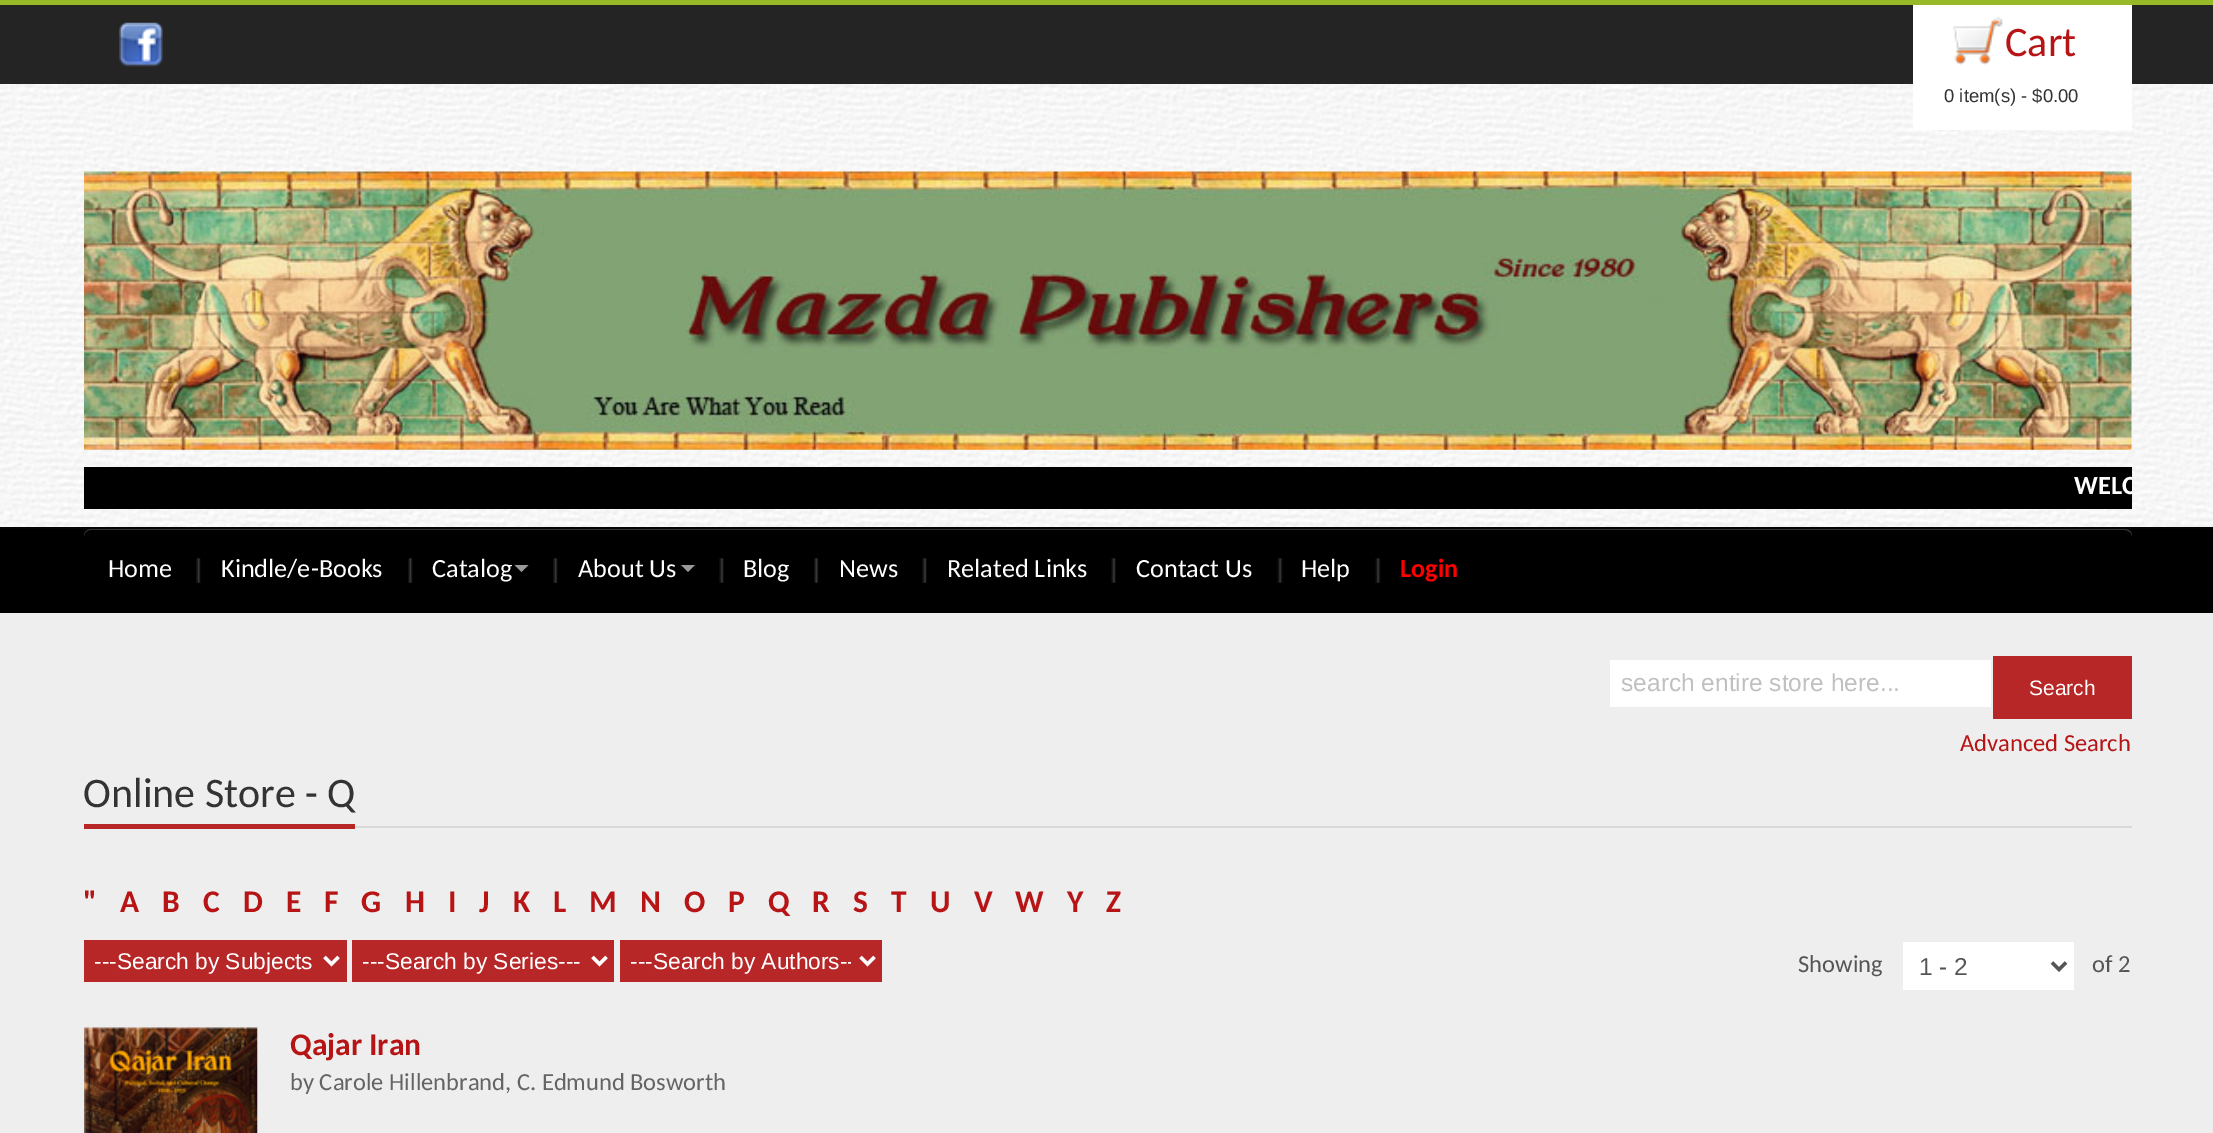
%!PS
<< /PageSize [2213 1133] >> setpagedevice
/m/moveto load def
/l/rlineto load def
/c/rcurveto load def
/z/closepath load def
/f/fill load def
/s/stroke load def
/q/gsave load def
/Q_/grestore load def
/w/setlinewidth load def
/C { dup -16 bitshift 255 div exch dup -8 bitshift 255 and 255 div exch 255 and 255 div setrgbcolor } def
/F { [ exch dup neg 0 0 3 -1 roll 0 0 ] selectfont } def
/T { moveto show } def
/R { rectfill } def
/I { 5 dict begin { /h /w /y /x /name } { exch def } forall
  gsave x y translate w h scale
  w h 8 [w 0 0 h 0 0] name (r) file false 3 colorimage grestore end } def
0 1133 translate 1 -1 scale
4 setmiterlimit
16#EEEEEE C
0 0 2213 1133 R
16#98B827 C
0 0 2213 5 R
16#242424 C
0 5 2213 79 R
(1.rgb) 119 22 44 45 I
(3.rgb) 0 84 2213 443 I
16#FFFFFF C
1913 5 219 125 R
(2.rgb) 1953 17 50 48 I
/Carlito-Regular 42 F
16#B71416 C
(Cart) 2005 56 T
/LiberationSans-Regular 18.5 F
16#333333 C
(0 item\(s\) - $0.00) 1944 102 T
(4.rgb) 84 171 2048 279 I
16#000000 C
84 467 2048 42 R
q
84 467 2048 42 rectclip
/Carlito-Bold 26.25 F
16#FFFFFF C
(WELC) 2074 494 T
Q_
0 529 2213 84 R
16#040404 C
0 527 2213 2 R
16#333333 C
91 530 m 2033 0 l 4 0 8 3 8 7 c 0 -1 l 0 -4 -3 -7 -7 -7 c -2034 0 l -4 0 -7 3 -7 7 c 0 1 l 0 -4 3 -7 7 -7 c z f
/Carlito-Regular 26.25 F
16#FFFFFF C
(Home) 108 577 T
(5.rgb) 196 558 5 25 I
(Kindle/e-Books) 221 577 T
(6.rgb) 408 558 5 25 I
(Catalog) 432 577 T
16#999999 C
514.5 565 m 14 0 l -7 7 l z f
(7.rgb) 553 558 5 25 I
16#FFFFFF C
(About Us) 578 577 T
16#999999 C
681 565 m 14 0 l -7 7 l z f
(8.rgb) 719 558 5 25 I
16#FFFFFF C
(Blog) 743 577 T
(6.rgb) 814 558 5 25 I
(News) 839 577 T
(8.rgb) 922 558 5 25 I
(Related Links) 947 577 T
(8.rgb) 1111 558 5 25 I
(Contact Us) 1136 577 T
(9.rgb) 1277 558 6 25 I
(Help) 1301 577 T
(9.rgb) 1375 558 6 25 I
/Carlito-Bold 26.25 F
16#FF0000 C
(Login) 1400 577 T
16#FFFFFF C
1610 660 381 47 R
/LiberationSans-Regular 24.5 F
16#C0C0C0 C
(search entire store here...) 1621 691 T
16#B82727 C
1993 656 139 63 R
/LiberationSans-Regular 21 F
16#FFFFFF C
(Search) 2029 695 T
/Carlito-Regular 24.5 F
16#B71416 C
(Advanced Search) 1960 751 T
16#D9D9D9 C
355 826 1777 2 R
16#B82727 C
84 824 271 5 R
/Carlito-Regular 42 F
16#333333 C
(Online Store - Q) 83 807 T
/Carlito-Bold 31.5 F
16#B71416 C
(") 83 912 T
(A) 120 912 T
(B) 162 912 T
(C) 203 912 T
(D) 243 912 T
(E) 286 912 T
(F) 324 912 T
(G) 361 912 T
(H) 405 912 T
(I) 448 912 T
(J) 479 912 T
(K) 513 912 T
(L) 553 912 T
(M) 589 912 T
(N) 640 912 T
(O) 684 912 T
(P) 728 912 T
(Q) 768 912 T
(R) 812 912 T
(S) 853 912 T
(T) 891 912 T
(U) 930 912 T
(V) 974 912 T
(W) 1015 912 T
(Y) 1067 912 T
(Z) 1106 912 T
16#B82727 C
84 940 263 42 R
16#FFFFFF C
3.5 w
324.5 957 m 7 7 l 7 -7 l s
/LiberationSans-Regular 22.75 F
(---Search by Subjects) 94 969 T
16#B82727 C
352 940 262 42 R
16#FFFFFF C
592.5 957 m 7 7 l 7 -7 l s
(---Search by Series---) 362 969 T
16#B82727 C
620 940 262 42 R
16#FFFFFF C
860.5 957 m 7 7 l 7 -7 l s
q
630 947 221 30 rectclip
(---Search by Authors--) 630 969 T
Q_
/Carlito-Regular 24.5 F
16#555555 C
(Showing) 1798 972 T
16#FFFFFF C
1903 942 171 48 R
16#555555 C
2052 962.5 m 7 7 l 7 -7 l s
/LiberationSans-Regular 24.5 F
(1 - 2) 1919 975 T
/Carlito-Regular 24.5 F
(of 2) 2092 972 T
(10.rgb) 84 1027 174 106 I
/Carlito-Bold 31.5 F
16#B71416 C
(Qajar Iran) 290 1055 T
/Carlito-Regular 24.5 F
16#646464 C
(by Carole Hillenbrand, C. Edmund Bosworth) 290 1090 T
showpage
